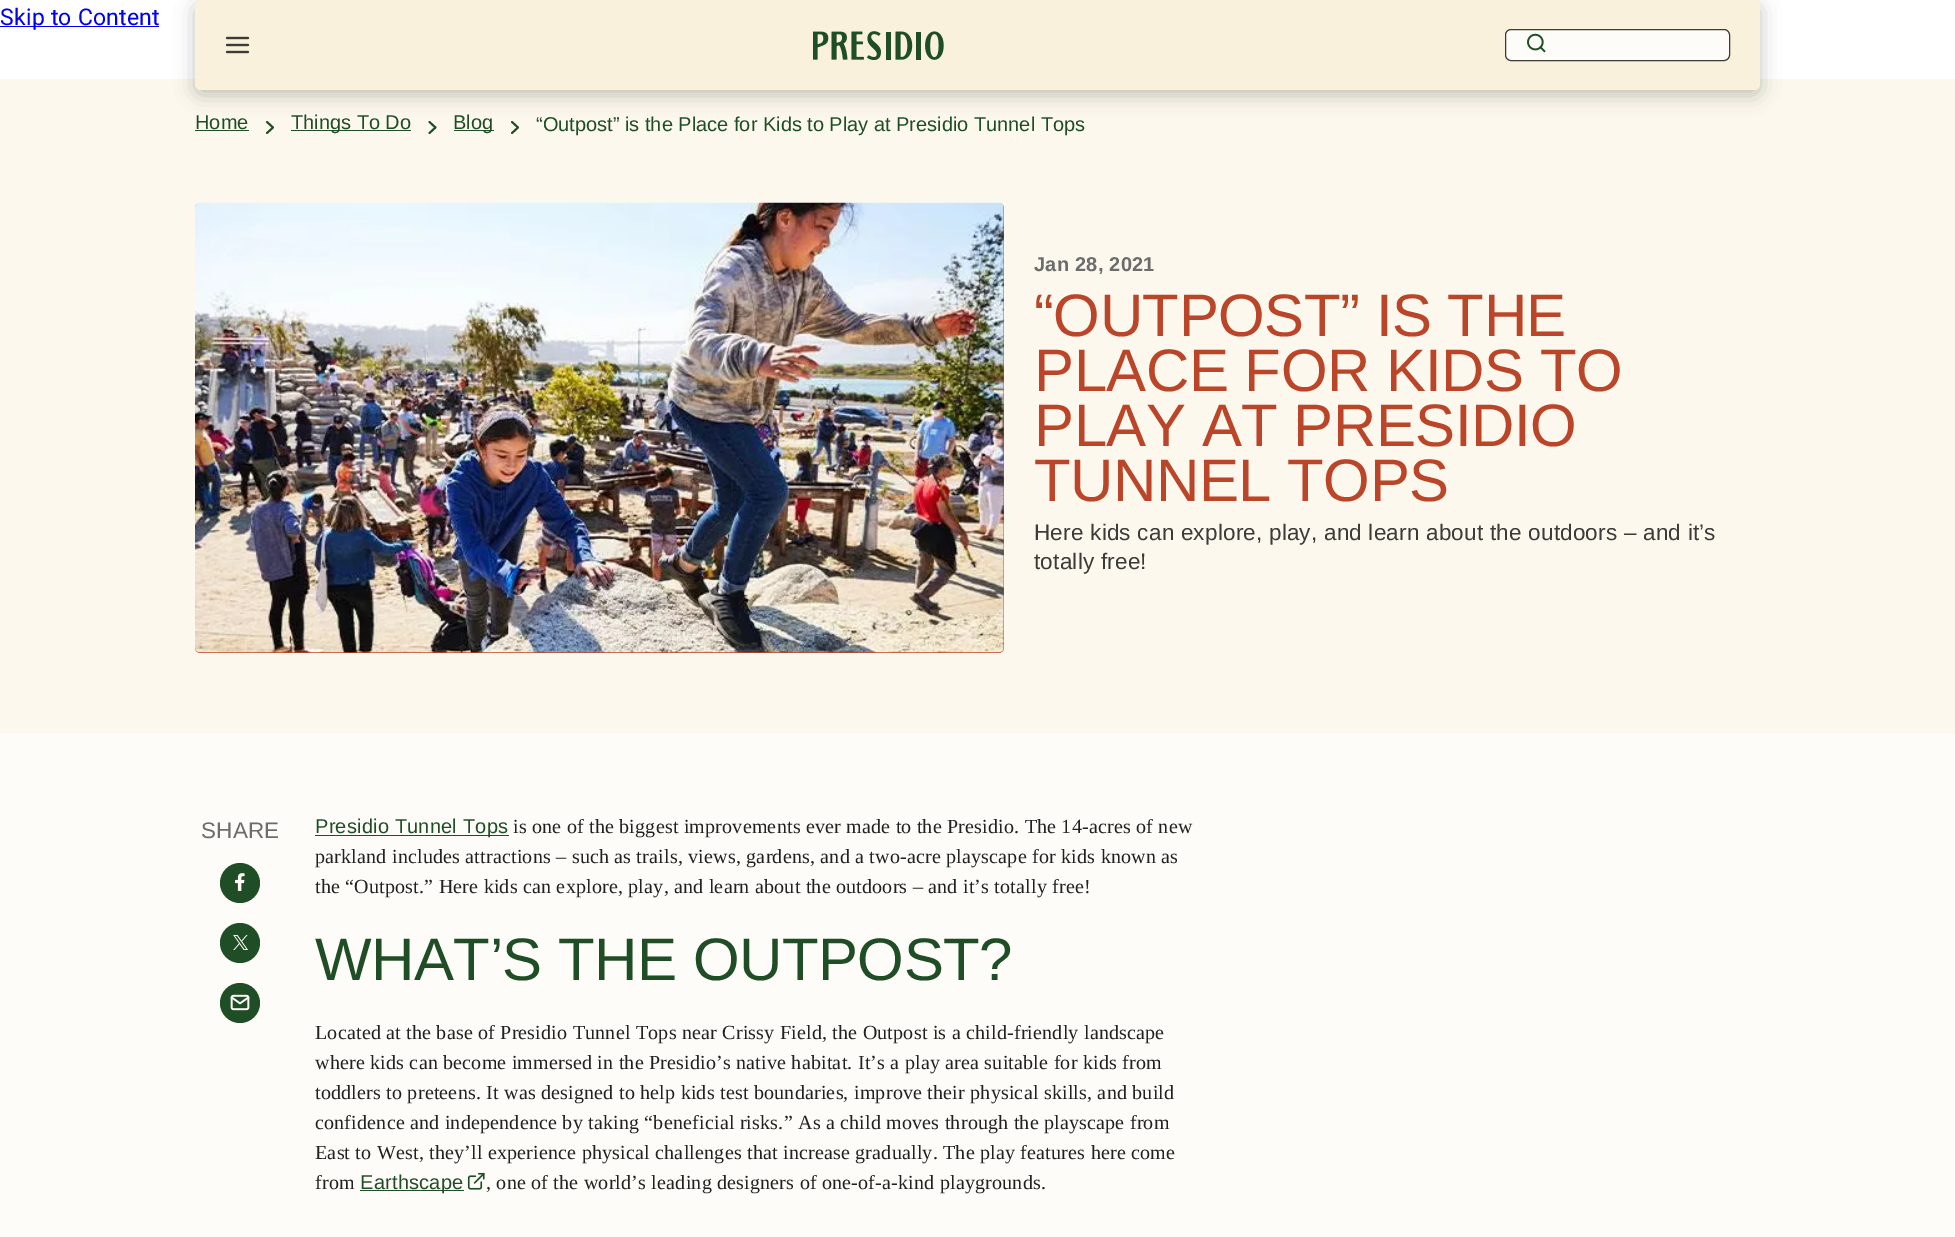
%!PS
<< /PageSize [1955 1237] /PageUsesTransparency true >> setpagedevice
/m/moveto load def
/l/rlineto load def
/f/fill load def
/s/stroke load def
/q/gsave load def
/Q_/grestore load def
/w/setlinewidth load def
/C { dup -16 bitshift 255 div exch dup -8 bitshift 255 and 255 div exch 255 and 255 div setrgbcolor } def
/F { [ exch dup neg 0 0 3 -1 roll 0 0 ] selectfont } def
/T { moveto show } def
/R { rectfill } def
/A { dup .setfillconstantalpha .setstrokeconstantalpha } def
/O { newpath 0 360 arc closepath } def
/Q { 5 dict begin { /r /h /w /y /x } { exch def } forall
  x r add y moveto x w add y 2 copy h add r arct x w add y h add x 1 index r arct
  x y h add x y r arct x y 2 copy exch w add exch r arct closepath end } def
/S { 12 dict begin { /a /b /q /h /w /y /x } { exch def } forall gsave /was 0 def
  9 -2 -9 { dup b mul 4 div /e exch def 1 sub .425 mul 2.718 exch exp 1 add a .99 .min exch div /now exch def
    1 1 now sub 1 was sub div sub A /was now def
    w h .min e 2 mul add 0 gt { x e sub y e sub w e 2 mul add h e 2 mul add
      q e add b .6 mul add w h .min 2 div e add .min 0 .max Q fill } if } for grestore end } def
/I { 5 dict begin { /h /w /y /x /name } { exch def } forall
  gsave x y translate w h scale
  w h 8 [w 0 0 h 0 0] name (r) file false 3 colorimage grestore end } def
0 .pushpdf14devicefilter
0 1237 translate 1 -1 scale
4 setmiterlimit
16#FFFFFF C
0 0 1955 1237 R
16#0000EE C
0 26 159 1 R
/Roboto-Regular 23 F
0 25 m .21 0 (Skip to Content) ashow
16#FCF8ED C
0 79 1955 654 R
16#1F4D25 C
1.9 w
1 setlinecap
1 setlinejoin
267 133 m 6 -5.5 l -6 -5.5 l s
429.5 133 m 6 -5.5 l -6 -5.5 l s
512 133 m 6 -5.5 l -6 -5.5 l s
16#000000 C
195 5 1565 90 6 10 .24 S
16#F9F1DB C
195 0 1565 90 6 Q f
(1.rgb) 225 36 25 18 I
(2.rgb) 813 31 131 29 I
16#FEFCF8 C
1505.5 29.5 224 31 5.5 Q q f Q_
16#3D3B38 C
1 w
0 setlinecap
0 setlinejoin
s
(3.rgb) 1527 33 19 20 I
/LiberationSans-Regular 20 F
16#1F4D25 C
(Home) 195 129 T
195 130 54 1 R
291 130 120 1 R
(Things To Do) 291 129 T
454 130 40 1 R
(Blog) 453 129 T
(“Outpost” is the Place for Kids to Play at Presidio Tunnel Tops) 536 131 T
16#BA4528 C
195 203 809 450 5 Q f
(4.rgb) 195 202 809 451 I
/LiberationSans-Bold 20 F
16#6C6C6C C
1034 271 m .25 0 (Jan 28, 2021) ashow
/LiberationSans-Regular 60 F
16#BA4528 C
1034 336 m -.5 0 (“OUTPOST” IS THE) ashow
1034 391 m -.5 0 (PLACE FOR KIDS TO) ashow
1034 446 m -.5 0 (PLAY AT PRESIDIO) ashow
1034 501 m -.5 0 (TUNNEL TOPS) ashow
/LiberationSans-Regular 22.5 F
16#3D3B38 C
1034 540 m .21 0 (Here kids can explore, play, and learn about the outdoors – and it’s) ashow
1034 569 m .21 0 (totally free!) ashow
16#FEFCF8 C
0 733 1955 504 R
16#6C6C6C C
201 838 m .21 0 (SHARE) ashow
16#1F4D25 C
240 883 20 O f
(5.rgb) 235 873 10 18 I
240 943 20 O f
(6.rgb) 233 935 15 15 I
240 1003 20 O f
(7.rgb) 230 994 20 17 I
315 835 194 1 R
/LiberationSans-Regular 20 F
315 833 m .21 0 (Presidio Tunnel Tops) ashow
/LiberationSerif-Regular 20 F
16#212120 C
513 833 m .21 0 (is one of the biggest improvements ever made to the Presidio. The 14-acres of new) ashow
315 863 m .21 0 (parkland includes attractions – such as trails, views, gardens, and a two-acre playscape for kids known as) ashow
315 893 m .21 0 (the “Outpost.” Here kids can explore, play, and learn about the outdoors – and it’s totally free!) ashow
/LiberationSans-Regular 60 F
16#1F4D25 C
315 980 m -.5 0 (WHAT’S THE OUTPOST?) ashow
/LiberationSerif-Regular 20 F
16#212120 C
315 1039 m .21 0 (Located at the base of Presidio Tunnel Tops near Crissy Field, the Outpost is a child-friendly landscape) ashow
315 1069 m .21 0 (where kids can become immersed in the Presidio’s native habitat. It’s a play area suitable for kids from) ashow
315 1099 m .21 0 (toddlers to preteens. It was designed to help kids test boundaries, improve their physical skills, and build) ashow
315 1129 m .21 0 (confidence and independence by taking “beneficial risks.” As a child moves through the playscape from) ashow
315 1159 m .21 0 (East to West, they’ll experience physical challenges that increase gradually. The play features here come) ashow
315 1189 m .21 0 (from) ashow
16#1F4D25 C
360 1190 104 1 R
/LiberationSans-Regular 20 F
360 1189 m .21 0 (Earthscape) ashow
(8.rgb) 467 1172 18 18 I
/LiberationSerif-Regular 20 F
16#212120 C
486 1189 m .21 0 (, one of the world’s leading designers of one-of-a-kind playgrounds.) ashow
.poppdf14devicefilter showpage
